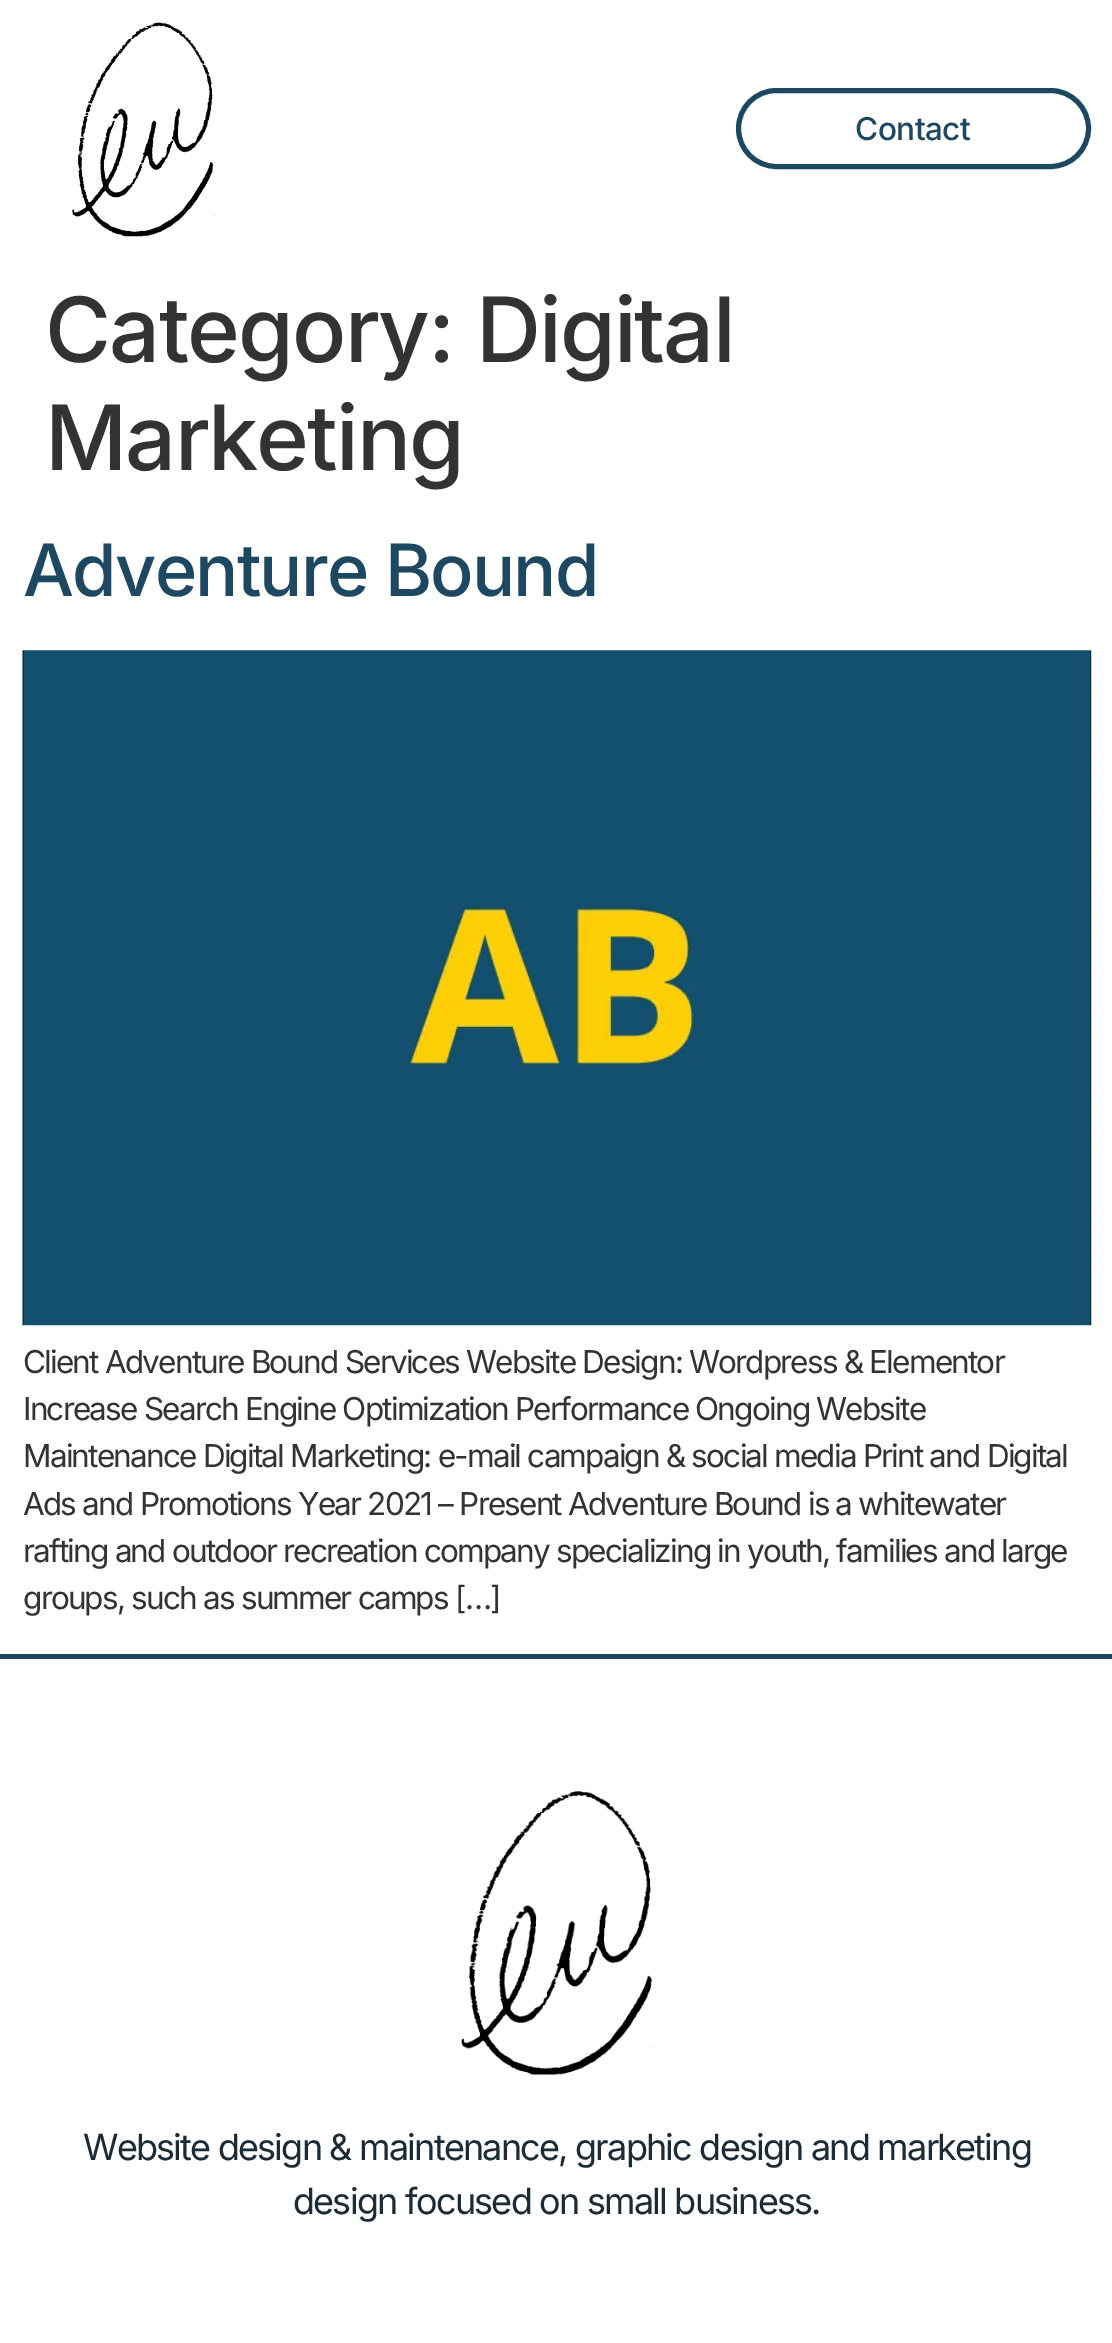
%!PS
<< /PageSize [1112 2343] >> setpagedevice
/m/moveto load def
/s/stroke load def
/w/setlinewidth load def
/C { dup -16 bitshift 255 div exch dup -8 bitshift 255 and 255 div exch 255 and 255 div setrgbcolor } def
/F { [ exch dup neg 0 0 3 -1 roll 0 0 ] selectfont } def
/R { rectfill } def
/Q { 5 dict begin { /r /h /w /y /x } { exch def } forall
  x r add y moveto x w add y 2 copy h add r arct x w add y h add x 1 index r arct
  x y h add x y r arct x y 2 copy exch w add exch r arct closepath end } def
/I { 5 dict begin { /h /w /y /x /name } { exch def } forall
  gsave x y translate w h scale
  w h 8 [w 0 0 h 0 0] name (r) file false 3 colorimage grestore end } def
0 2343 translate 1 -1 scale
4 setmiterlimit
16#FFFFFF C
0 0 1112 2343 R
(1.rgb) 72 22 142 215 I
16#1D4862 C
5 w
738.5 90.5 350 76 38 Q s
/Inter-Medium 31.5 F
855 140 m -.5 0 (Contact) ashow
/Inter-Medium 90 F
16#333333 C
45 362 m -1.8 0 (Category: Digital) ashow
45 470 m -1.8 0 (Marketing) ashow
/Inter-Medium 72 F
16#1D4862 C
23 596 m -1.8 0 (Adventure Bound) ashow
(2.rgb) 22 650 1070 676 I
/Inter-Regular 31.5 F
16#333333 C
23 1373 m -1.8 0 (Client Adventure Bound Services Website Design: Wordpress & Elementor) ashow
23 1420 m -1.8 0 (Increase Search Engine Optimization Performance Ongoing Website) ashow
23 1467 m -1.8 0 (Maintenance Digital Marketing: e-mail campaign & social media Print and Digital) ashow
23 1515 m -1.8 0 (Ads and Promotions Year 2021 – Present Adventure Bound is a whitewater) ashow
23 1562 m -1.8 0 (rafting and outdoor recreation company specializing in youth, families and large) ashow
23 1609 m -1.8 0 (groups, such as summer camps […]) ashow
16#1D4862 C
0 1654 1112 5 R
(3.rgb) 461 1791 192 284 I
/Inter-Regular 36 F
16#1B2C36 C
83 2160 m -1.8 0 (Website design & maintenance, graphic design and marketing) ashow
293 2214 m -1.8 0 (design focused on small business.) ashow
showpage
